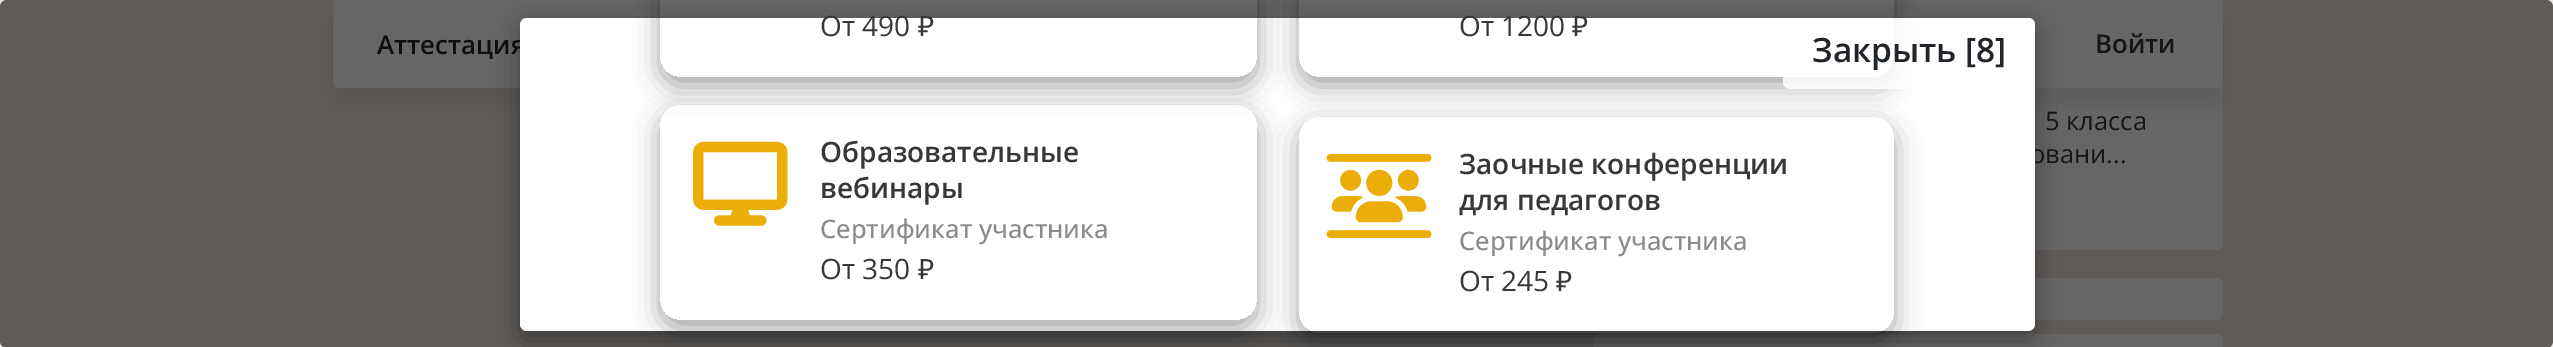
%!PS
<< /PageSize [2553 347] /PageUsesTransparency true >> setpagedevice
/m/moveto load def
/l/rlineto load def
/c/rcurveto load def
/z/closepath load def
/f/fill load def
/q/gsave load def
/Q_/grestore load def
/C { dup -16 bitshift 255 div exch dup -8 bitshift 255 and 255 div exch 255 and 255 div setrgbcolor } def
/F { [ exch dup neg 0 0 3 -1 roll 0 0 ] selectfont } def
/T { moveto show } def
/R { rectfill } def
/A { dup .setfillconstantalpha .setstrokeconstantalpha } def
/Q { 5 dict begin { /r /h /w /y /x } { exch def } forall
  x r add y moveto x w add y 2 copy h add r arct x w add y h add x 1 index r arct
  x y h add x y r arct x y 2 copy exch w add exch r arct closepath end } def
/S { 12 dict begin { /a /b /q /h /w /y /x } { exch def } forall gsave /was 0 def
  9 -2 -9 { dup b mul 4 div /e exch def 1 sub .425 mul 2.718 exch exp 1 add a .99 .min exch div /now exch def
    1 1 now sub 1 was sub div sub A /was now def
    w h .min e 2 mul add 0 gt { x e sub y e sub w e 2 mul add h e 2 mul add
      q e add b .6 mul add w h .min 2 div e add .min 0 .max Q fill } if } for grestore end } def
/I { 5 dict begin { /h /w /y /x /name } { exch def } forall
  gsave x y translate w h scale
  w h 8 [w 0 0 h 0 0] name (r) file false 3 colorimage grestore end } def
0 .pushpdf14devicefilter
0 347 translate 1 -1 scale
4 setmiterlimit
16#EAE3DF C
0 0 2553 347 R
16#FFFFFF C
1593 -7 630 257 7 Q f
16#7E7E7E C
333 18 1890 87 7 9 .15 S
16#FFFFFF C
333 0 m 1890 0 l 0 81 l 0 4 -3 7 -7 7 c -1876 0 l -4 0 -7 -3 -7 -7 c z f
/OpenSans-SemiBold 25.75 F
16#212529 C
(Аттестация) 377 54 T
16#373737 C
(Войти) 2095 53 T
/OpenSans-Regular 25.5 F
(5 класса) 2045 130 T
(овани...) 2030 163 T
16#FFFFFF C
1593 278 630 42 7 Q f
1593 334 630 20 7 Q f
0.6 A
16#000000 C
0 0 2553 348 7 Q f
1 A
520 26 1515 314 7 13 .35 S
16#FFFFFF C
520 18 1515 313 7 Q f
q
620 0 m 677 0 l 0 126 l -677 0 l z 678 -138 m 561 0 l 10 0 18 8 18 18 c 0 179 l 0 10 -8 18 -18 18 c -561 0 l -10 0 -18 -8 -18 -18 c 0 -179 l 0 -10 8 -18 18 -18 c z eoclip newpath
16#000000 C
660 -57 597 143 18 13 .35 S
Q_
/OpenSans-Regular 28 F
16#373737 C
(От 490) 820 36 T
/NotoSans-Regular 28 F
(₽) 918 36 T
q
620 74 m 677 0 l 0 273 l -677 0 l z 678 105 m 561 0 l 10 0 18 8 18 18 c 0 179 l 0 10 -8 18 -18 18 c -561 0 l -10 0 -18 -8 -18 -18 c 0 -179 l 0 -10 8 -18 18 -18 c z eoclip newpath
16#000000 C
660 114 597 215 18 13 .35 S
Q_
(1.rgb) 693 141 95 85 I
/OpenSans-SemiBold 28 F
(Образовательные) 820 162 T
(вебинары) 820 198 T
/OpenSans-Medium 25.5 F
16#8B8B8B C
(Сертификат участника) 820 238 T
/OpenSans-Regular 28 F
16#373737 C
(От 350) 820 279 T
/NotoSans-Regular 28 F
(₽) 918 279 T
q
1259 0 m 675 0 l 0 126 l -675 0 l z 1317 -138 m 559 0 l 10 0 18 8 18 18 c 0 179 l 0 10 -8 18 -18 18 c -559 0 l -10 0 -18 -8 -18 -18 c 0 -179 l 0 -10 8 -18 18 -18 c z eoclip newpath
16#000000 C
1299 -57 595 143 18 13 .35 S
Q_
/OpenSans-Regular 28 F
(От 1200) 1459 36 T
/NotoSans-Regular 28 F
(₽) 1572 36 T
q
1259 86 m 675 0 l 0 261 l -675 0 l z 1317 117 m 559 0 l 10 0 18 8 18 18 c 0 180 l 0 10 -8 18 -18 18 c -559 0 l -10 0 -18 -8 -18 -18 c 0 -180 l 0 -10 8 -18 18 -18 c z eoclip newpath
16#000000 C
1299 126 595 215 18 13 .35 S
Q_
(2.rgb) 1326 154 106 84 I
/OpenSans-SemiBold 28 F
(Заочные конференции) 1459 174 T
(для педагогов) 1459 210 T
/OpenSans-Medium 25.5 F
16#8B8B8B C
(Сертификат участника) 1459 250 T
/OpenSans-Regular 28 F
16#373737 C
(От 245) 1459 291 T
/NotoSans-Regular 28 F
(₽) 1556 291 T
0.85 A
16#FFFFFF C
1783 18 252 71 7 Q f
/OpenSans-SemiBold 33.5 F
1 A
16#212529 C
(Закрыть [8]) 1812 62 T
.poppdf14devicefilter showpage
